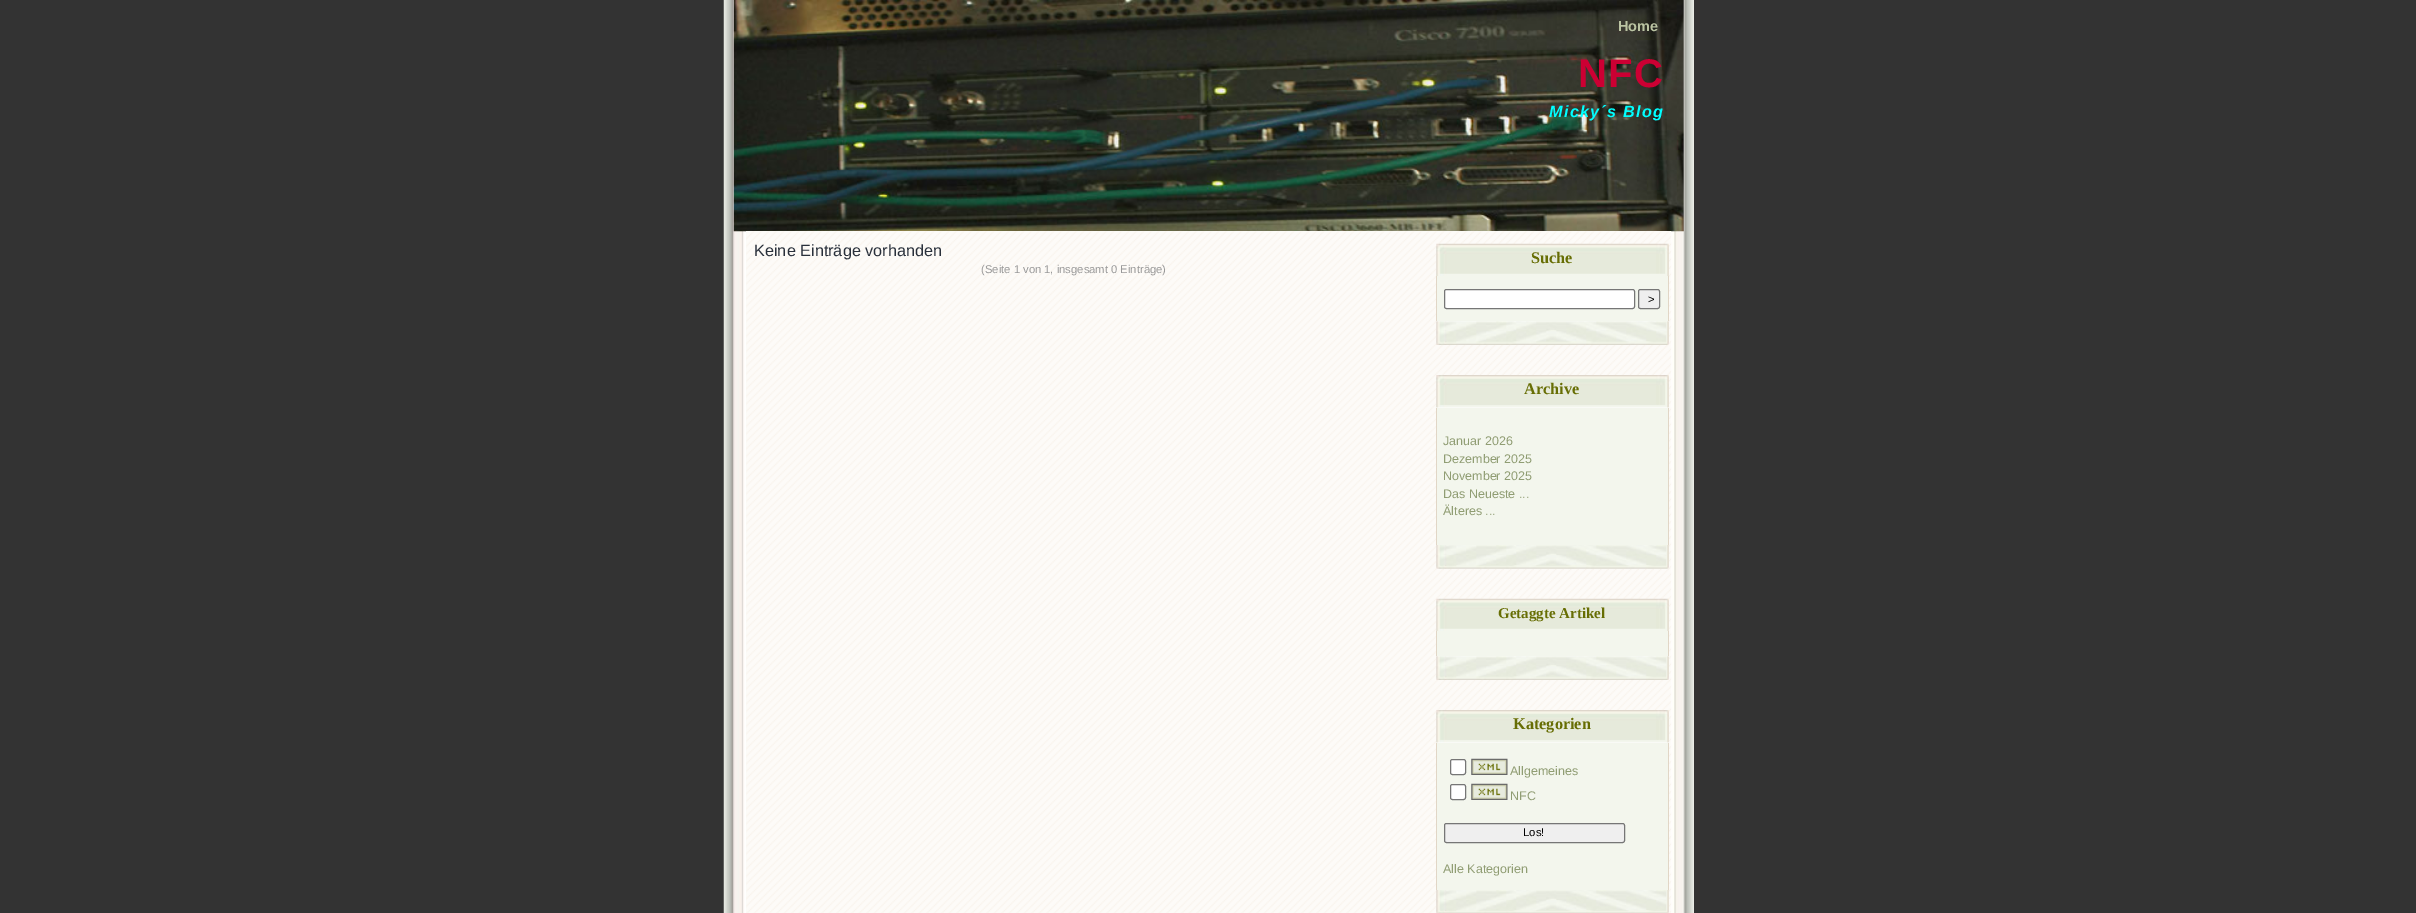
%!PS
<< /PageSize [2416 913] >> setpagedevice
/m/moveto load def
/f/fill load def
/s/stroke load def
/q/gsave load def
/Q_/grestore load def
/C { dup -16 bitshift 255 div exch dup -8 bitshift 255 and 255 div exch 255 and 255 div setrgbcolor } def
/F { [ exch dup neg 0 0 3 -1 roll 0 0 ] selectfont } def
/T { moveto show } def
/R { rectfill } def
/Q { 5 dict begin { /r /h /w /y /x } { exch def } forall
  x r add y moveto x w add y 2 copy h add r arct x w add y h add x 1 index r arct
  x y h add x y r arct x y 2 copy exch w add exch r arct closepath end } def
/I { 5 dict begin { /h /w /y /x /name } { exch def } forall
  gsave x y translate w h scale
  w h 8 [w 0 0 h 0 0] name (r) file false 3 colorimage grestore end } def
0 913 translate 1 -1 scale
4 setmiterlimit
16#333333 C
0 0 2416 913 R
(1.rgb) 723 0 971 913 I
(2.rgb) 733 0 951 232 I
/LiberationSans-Bold 14.5 F
16#BBC4A3 C
(Home) 1618 31 T
/LiberationSans-Bold 40 F
16#CC0033 C
1578 87 m 1.25 0 (NFC) ashow
/LiberationSans-BoldItalic 16.25 F
16#00FFFF C
1549 117 m 1.25 0 (Micky´s Blog) ashow
16#FDFBF8 C
746 231 925 682 R
(3.rgb) 746 231 926 682 I
/LiberationSans-Regular 16.25 F
16#29303B C
(Keine Einträge vorhanden) 754 256 T
/LiberationSans-Regular 11.25 F
16#999999 C
(\(Seite 1 von 1, insgesamt 0 Einträge\)) 981 273 T
(4.rgb) 1436 243 233 33 I
/LiberationSerif-Bold 16.25 F
16#676E04 C
(Suche) 1531 263 T
16#F3F6ED C
1437 276 231 45 R
16#E1D6C6 C
1668 276 1 45 R
1436 276 1 45 R
16#FFFFFF C
1444.5 289.5 190 19 2 Q q f Q_
16#767676 C
s
16#EFEFEF C
1638.5 289.5 21 19 2 Q q f Q_
16#767676 C
s
/LiberationSans-Regular 11.25 F
16#000000 C
(>) 1648 303 T
16#FFFFFF C
1436 321 233 24 R
(5.rgb) 1436 321 233 24 I
1436 375 233 33 R
(6.rgb) 1436 375 233 33 I
/LiberationSerif-Bold 16.25 F
16#676E04 C
(Archive) 1524 394 T
16#F3F6ED C
1437 408 231 137 R
16#E1D6C6 C
1668 408 1 137 R
1436 408 1 137 R
/LiberationSans-Regular 12.5 F
16#909D73 C
(Januar 2026) 1443 445 T
(Dezember 2025) 1443 463 T
(November 2025) 1443 480 T
(Das Neueste ...) 1443 498 T
(Älteres ...) 1443 515 T
16#FFFFFF C
1436 545 233 24 R
(7.rgb) 1436 545 233 24 I
(8.rgb) 1436 598 233 33 I
/LiberationSerif-Bold 15 F
16#676E04 C
(Getaggte Artikel) 1498 618 T
16#F3F6ED C
1437 631 231 25 R
16#E1D6C6 C
1668 631 1 25 R
1436 631 1 25 R
16#FFFFFF C
1436 656 233 24 R
(5.rgb) 1436 656 233 24 I
1436 710 233 33 R
(6.rgb) 1436 710 233 33 I
/LiberationSerif-Bold 16.25 F
16#676E04 C
(Kategorien) 1513 729 T
16#F3F6ED C
1437 743 231 147 R
16#E1D6C6 C
1668 743 1 147 R
1436 743 1 147 R
16#FFFFFF C
1450.5 759.5 15 15 2 Q q f Q_
16#767676 C
s
(9.rgb) 1471 758 37 17 I
/LiberationSans-Regular 12.5 F
16#909D73 C
(Allgemeines) 1510 775 T
16#FFFFFF C
1450.5 784.5 15 15 2 Q q f Q_
16#767676 C
s
(9.rgb) 1471 783 37 17 I
16#909D73 C
(NFC) 1510 800 T
16#EFEFEF C
1444.5 823.5 180 19 2 Q q f Q_
16#767676 C
s
/LiberationSans-Regular 11.25 F
16#000000 C
(Los!) 1523 836 T
/LiberationSans-Regular 12.5 F
16#909D73 C
(Alle Kategorien) 1443 873 T
(10.rgb) 1436 890 233 23 I
showpage
